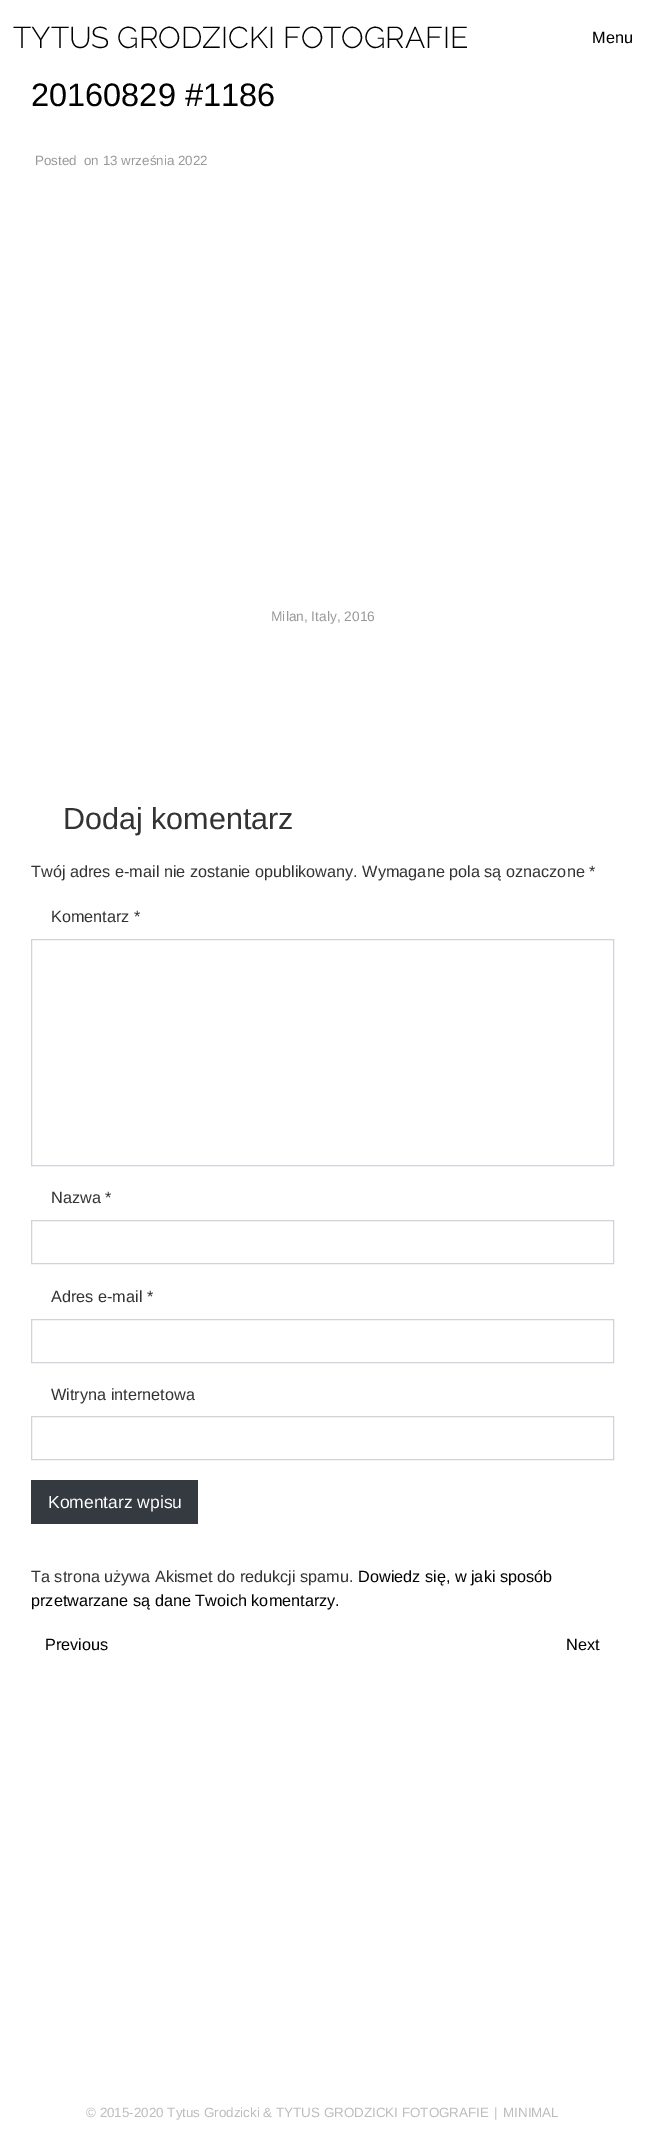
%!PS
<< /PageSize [645 2132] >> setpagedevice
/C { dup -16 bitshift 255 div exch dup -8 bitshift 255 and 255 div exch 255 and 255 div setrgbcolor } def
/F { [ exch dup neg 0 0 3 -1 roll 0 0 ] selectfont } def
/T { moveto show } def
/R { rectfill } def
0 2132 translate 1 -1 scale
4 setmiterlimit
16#FFFFFF C
0 0 645 2132 R
/Raleway-Thin 30 F
16#000000 C
(TYTUS GRODZICKI FOTOGRAFIE) 13 48 T
/LiberationSans-Regular 16.25 F
(Menu) 592 43 T
/LiberationSans-Regular 32.5 F
(20160829 #1186) 31 106 T
/LiberationSans-Regular 13.4 F
16#999999 C
(Posted) 35 165 T
(on 13 września 2022) 84 165 T
/LiberationSans-Regular 13.75 F
(Milan, Italy, 2016) 271 621 T
/LiberationSans-Regular 30.5 F
16#333333 C
(Dodaj komentarz) 63 829 T
/LiberationSans-Regular 16.25 F
(Twój adres e-mail nie zostanie opublikowany. Wymagane pola są oznaczone *) 31 877 T
(Komentarz *) 51 922 T
16#CED4DA C
31.5 939.5 582 226 rectstroke
16#333333 C
(Nazwa *) 51 1203 T
16#CED4DA C
31.5 1220.5 582 43 rectstroke
16#333333 C
(Adres e-mail *) 51 1302 T
16#CED4DA C
31.5 1319.5 582 43 rectstroke
16#333333 C
(Witryna internetowa) 51 1400 T
16#CED4DA C
31.5 1416.5 582 43 rectstroke
16#343A40 C
31 1480 167 44 R
/LiberationSans-Regular 17.5 F
16#FFFFFF C
(Komentarz wpisu) 48 1508 T
/LiberationSans-Regular 16.25 F
16#333333 C
(Ta strona używa Akismet do redukcji spamu.) 31 1582 T
16#000000 C
(Dowiedz się, w jaki sposób) 358 1582 T
(przetwarzane są dane Twoich komentarzy.) 31 1606 T
(Previous) 45 1650 T
(Next) 566 1650 T
/LiberationSans-Regular 13.4 F
16#BDBDBD C
(© 2015-2020 Tytus Grodzicki & TYTUS GRODZICKI FOTOGRAFIE) 86 2117 T
(|) 494 2117 T
(MINIMAL) 503 2117 T
showpage
